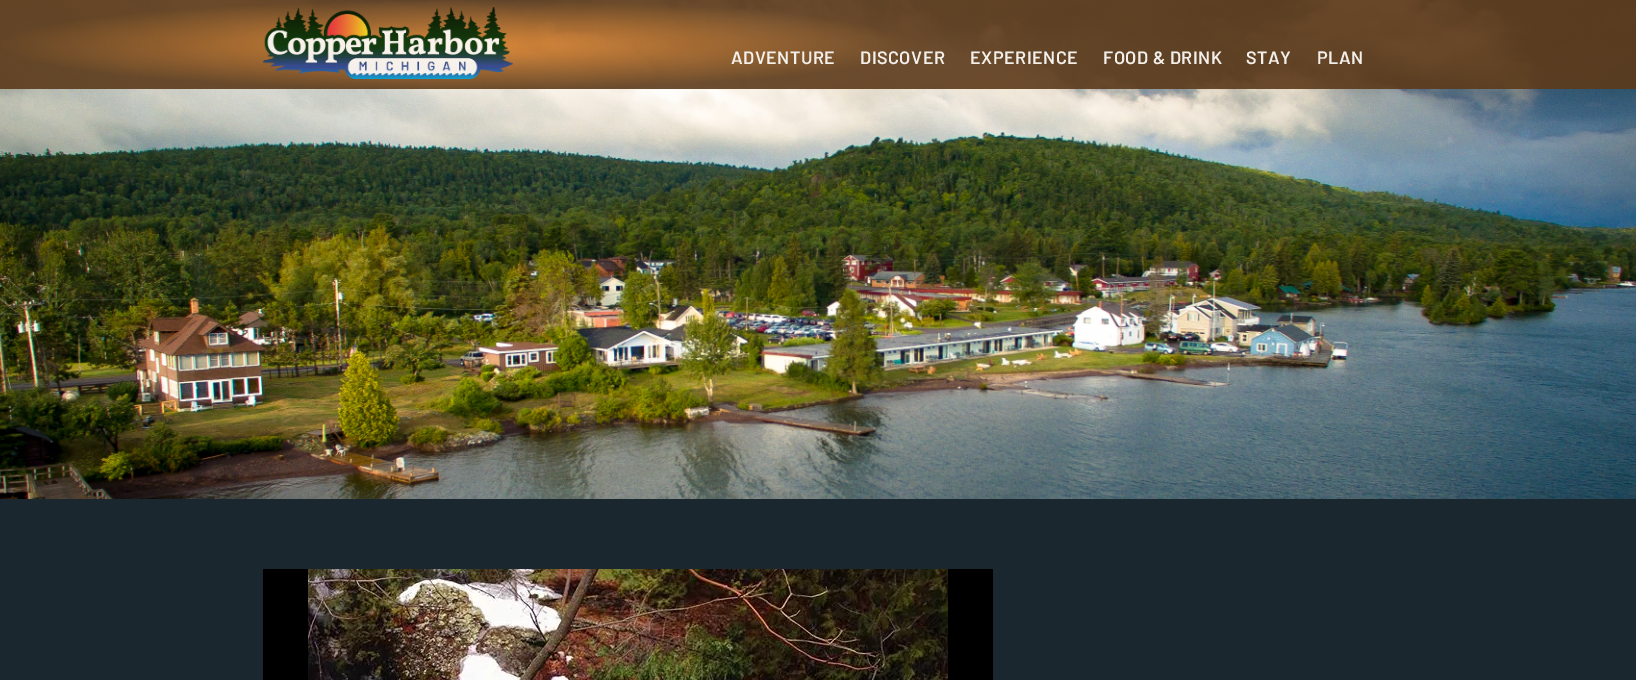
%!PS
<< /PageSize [1636 680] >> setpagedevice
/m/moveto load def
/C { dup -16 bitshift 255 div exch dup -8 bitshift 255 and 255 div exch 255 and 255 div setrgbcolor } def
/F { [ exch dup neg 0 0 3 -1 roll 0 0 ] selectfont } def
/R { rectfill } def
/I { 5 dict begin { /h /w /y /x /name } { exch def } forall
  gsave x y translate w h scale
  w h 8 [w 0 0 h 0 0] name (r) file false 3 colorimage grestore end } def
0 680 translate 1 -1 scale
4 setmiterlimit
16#1A272F C
0 0 1636 680 R
(1.rgb) 0 0 1636 499 I
(2.rgb) 263 7 250 72 I
/Barlow-SemiBold 18 F
16#F3EFEA C
731 64 m .5 0 (ADVENTURE) ashow
860 64 m .5 0 (DISCOVER) ashow
970 64 m .5 0 (EXPERIENCE) ashow
1103 64 m .5 0 (FOOD & DRINK) ashow
1246 64 m .5 0 (STAY) ashow
1317 64 m .5 0 (PLAN) ashow
16#000000 C
263 569 730 111 R
(3.rgb) 308 569 640 111 I
showpage
